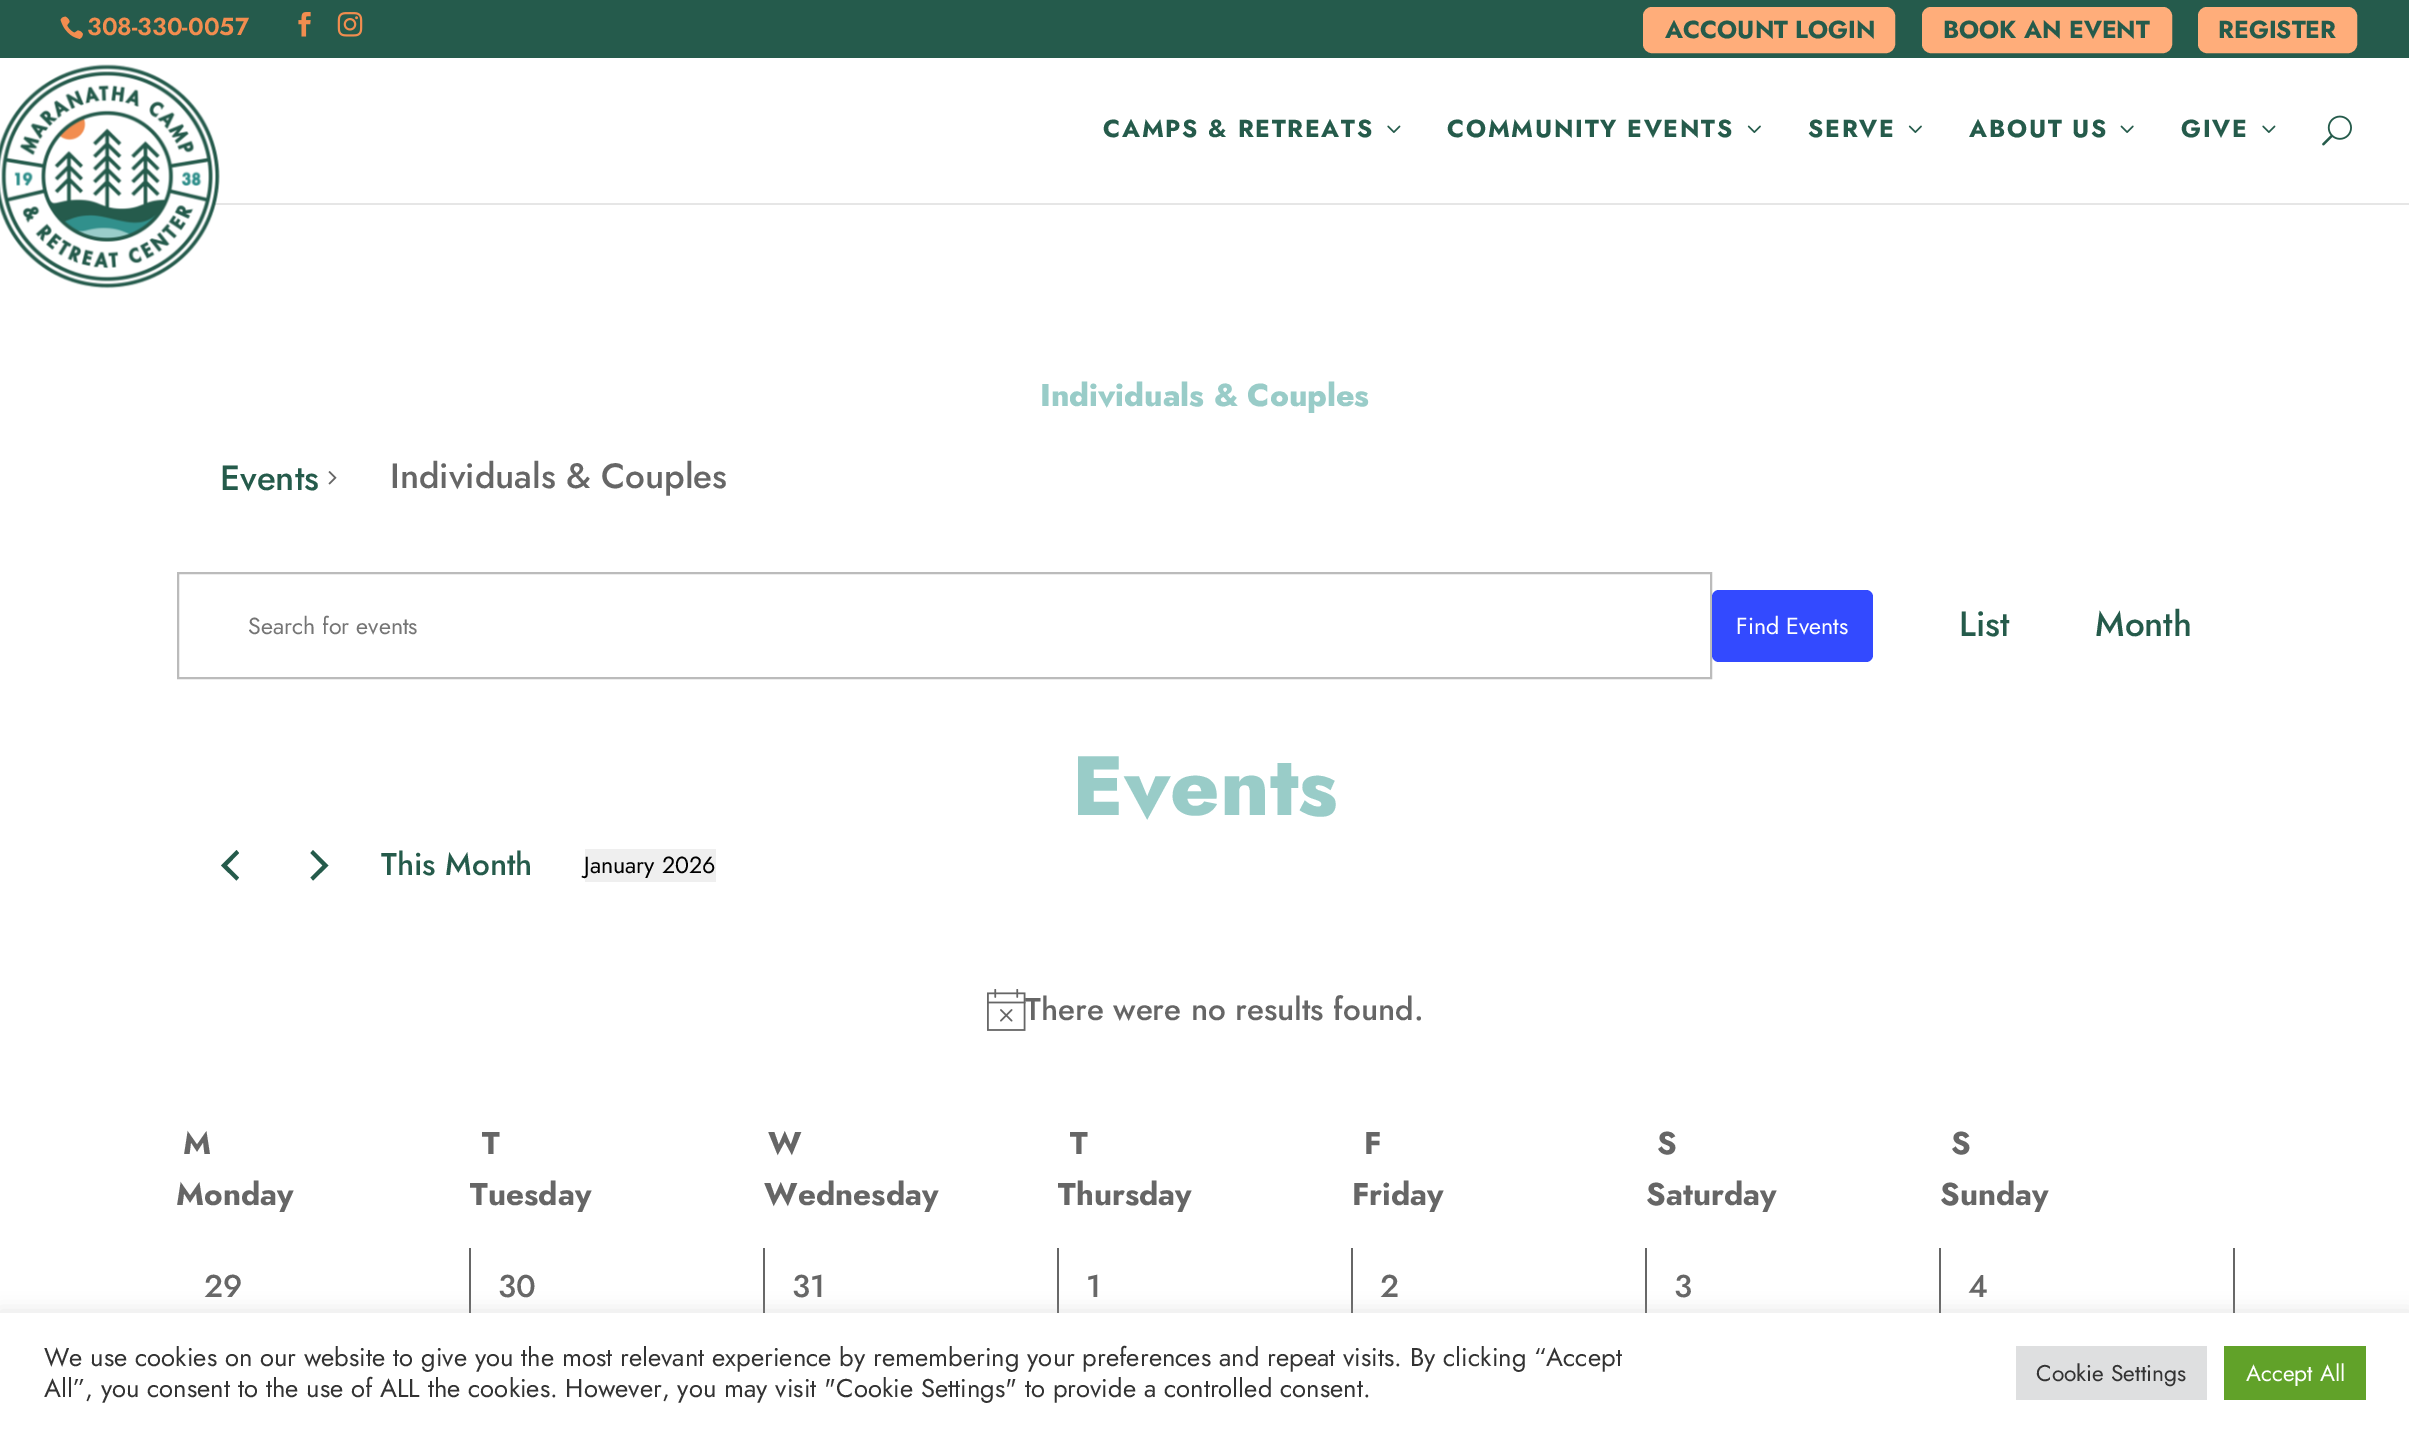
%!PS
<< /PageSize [2409 1433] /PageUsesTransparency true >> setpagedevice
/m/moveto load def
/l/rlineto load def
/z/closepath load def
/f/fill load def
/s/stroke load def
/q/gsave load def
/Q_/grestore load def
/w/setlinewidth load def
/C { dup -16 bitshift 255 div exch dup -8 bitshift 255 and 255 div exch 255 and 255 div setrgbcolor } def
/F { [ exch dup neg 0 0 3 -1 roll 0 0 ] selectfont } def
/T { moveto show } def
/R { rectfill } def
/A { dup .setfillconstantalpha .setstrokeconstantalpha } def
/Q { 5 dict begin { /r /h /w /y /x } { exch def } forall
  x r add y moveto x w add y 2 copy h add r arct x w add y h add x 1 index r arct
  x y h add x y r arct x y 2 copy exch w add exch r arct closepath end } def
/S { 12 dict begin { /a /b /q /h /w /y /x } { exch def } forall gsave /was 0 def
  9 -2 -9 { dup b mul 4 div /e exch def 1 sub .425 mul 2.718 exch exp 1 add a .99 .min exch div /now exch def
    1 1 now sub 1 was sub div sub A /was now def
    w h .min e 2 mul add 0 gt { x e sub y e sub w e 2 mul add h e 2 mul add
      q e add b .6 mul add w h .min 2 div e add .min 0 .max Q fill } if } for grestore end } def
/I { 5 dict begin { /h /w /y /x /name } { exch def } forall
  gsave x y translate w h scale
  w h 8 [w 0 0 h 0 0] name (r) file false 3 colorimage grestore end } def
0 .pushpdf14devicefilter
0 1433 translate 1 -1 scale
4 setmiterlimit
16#FFFFFF C
0 0 2409 1433 R
16#255B4C C
0 0 2409 58 R
(1.rgb) 60 16 23 23 I
/Jost-SemiBold 24.5 F
16#F28D4F C
(308-330-0057) 87 35 T
(2.rgb) 298 12 13 25 I
(3.rgb) 337 12 26 25 I
16#FFAD7A C
1645 9 248 42 7 Q q f Q_
4 w
s
/Jost-Bold 24.5 F
16#255B4B C
(ACCOUNT LOGIN) 1665 38 T
16#FFAD7A C
1924 9 246 42 7 Q q f Q_
s
16#255B4B C
(BOOK AN EVENT) 1943 38 T
16#FFAD7A C
2200 9 155 42 7 Q q f Q_
s
16#255B4B C
(REGISTER) 2218 38 T
16#E6E6E6 C
0 203 m 0 2 l 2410 0 l 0 -145 l 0 143 l z f
(4.rgb) 0 64 220 225 I
16#255B4B C
1103 137 m 1.75 0 (CAMPS & RETREATS) ashow
(5.rgb) 1387 125 14 8 I
1447 137 m 1.75 0 (COMMUNITY EVENTS) ashow
(6.rgb) 1747 125 14 8 I
1808 137 m 1.75 0 (SERVE) ashow
(6.rgb) 1908 125 14 8 I
1969 137 m 1.75 0 (ABOUT US) ashow
(7.rgb) 2120 125 14 8 I
2181 137 m 1.75 0 (GIVE) ashow
(5.rgb) 2262 125 14 8 I
(8.rgb) 2322 115 30 31 I
/Jost-ExtraBold 31.5 F
16#99CCC8 C
(Individuals & Couples) 1040 406 T
/Jost-Medium 35 F
16#255B4B C
(Events) 220 490 T
(9.rgb) 328 471 9 14 I
16#666666 C
(Individuals & Couples) 390 488 T
16#BBBBBB C
2 w
178 573 1533 105 rectstroke
/Jost-Regular 23.25 F
16#757575 C
(Search for events) 248 634 T
16#334AFF C
1712 590 161 72 7 Q f
16#FFFFFF C
(Find Events) 1736 634 T
/Jost-Medium 35 F
16#255B4B C
(List) 1959 636 T
(Month) 2095 636 T
/Jost-ExtraBold 84 F
16#99CCC8 C
(Events) 1072 815 T
16#255B4B C
239 877.5 m -2.5 3 l -15.5 -15 l 15.5 -15.5 l 2.5 3 l -12 12.5 l z f
310.5 853 m 2.5 -3 l 15.5 15.5 l -15.5 15 l -2.5 -3 l 12 -12 l z f
/Jost-Medium 31.5 F
(This Month) 381 875 T
16#EFEFEF C
585 849 131 33 R
/Jost-Regular 23.25 F
16#000000 C
(January 2026) 584 873 T
/Jost-Medium 31.5 F
16#666666 C
(There were no results found.) 1025 1020 T
(10.rgb) 987 989 39 42 I
/Jost-Bold 31.5 F
(M) 183 1154 T
(Monday) 176 1205 T
(T) 482 1154 T
(Tuesday) 470 1205 T
(W) 768 1154 T
(Wednesday) 764 1205 T
(T) 1070 1154 T
(Thursday) 1058 1205 T
(F) 1364 1154 T
(Friday) 1352 1205 T
(S) 1657 1154 T
(Saturday) 1646 1205 T
(S) 1951 1154 T
(Sunday) 1940 1205 T
469 1248 2 65 R
/Jost-Medium 31.5 F
(29) 204 1297 T
763 1248 2 65 R
(30) 498 1297 T
1057 1248 2 65 R
(31) 792 1297 T
1351 1248 2 65 R
(1) 1086 1297 T
1645 1248 2 65 R
(2) 1380 1297 T
1939 1248 2 65 R
(3) 1674 1297 T
2233 1248 2 65 R
(4) 1968 1297 T
16#ACABAB C
0 1311 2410 121 0 9 .3 S
16#FFFFFF C
0 1313 2409 120 R
/Jost-Regular 25.67 F
16#333333 C
(We use cookies on our website to give you the most relevant experience by remembering your preferences and repeat visits. By clicking “Accept) 44 1366 T
(All”, you consent to the use of ALL the cookies. However, you may visit "Cookie Settings" to provide a controlled consent.) 44 1397 T
16#DEDFE0 C
2016 1346 191 54 R
/Jost-Regular 22.75 F
16#333333 C
(Cookie Settings) 2036 1381 T
16#61A229 C
2224 1346 142 54 R
16#FFFFFF C
(Accept All) 2246 1381 T
.poppdf14devicefilter showpage
